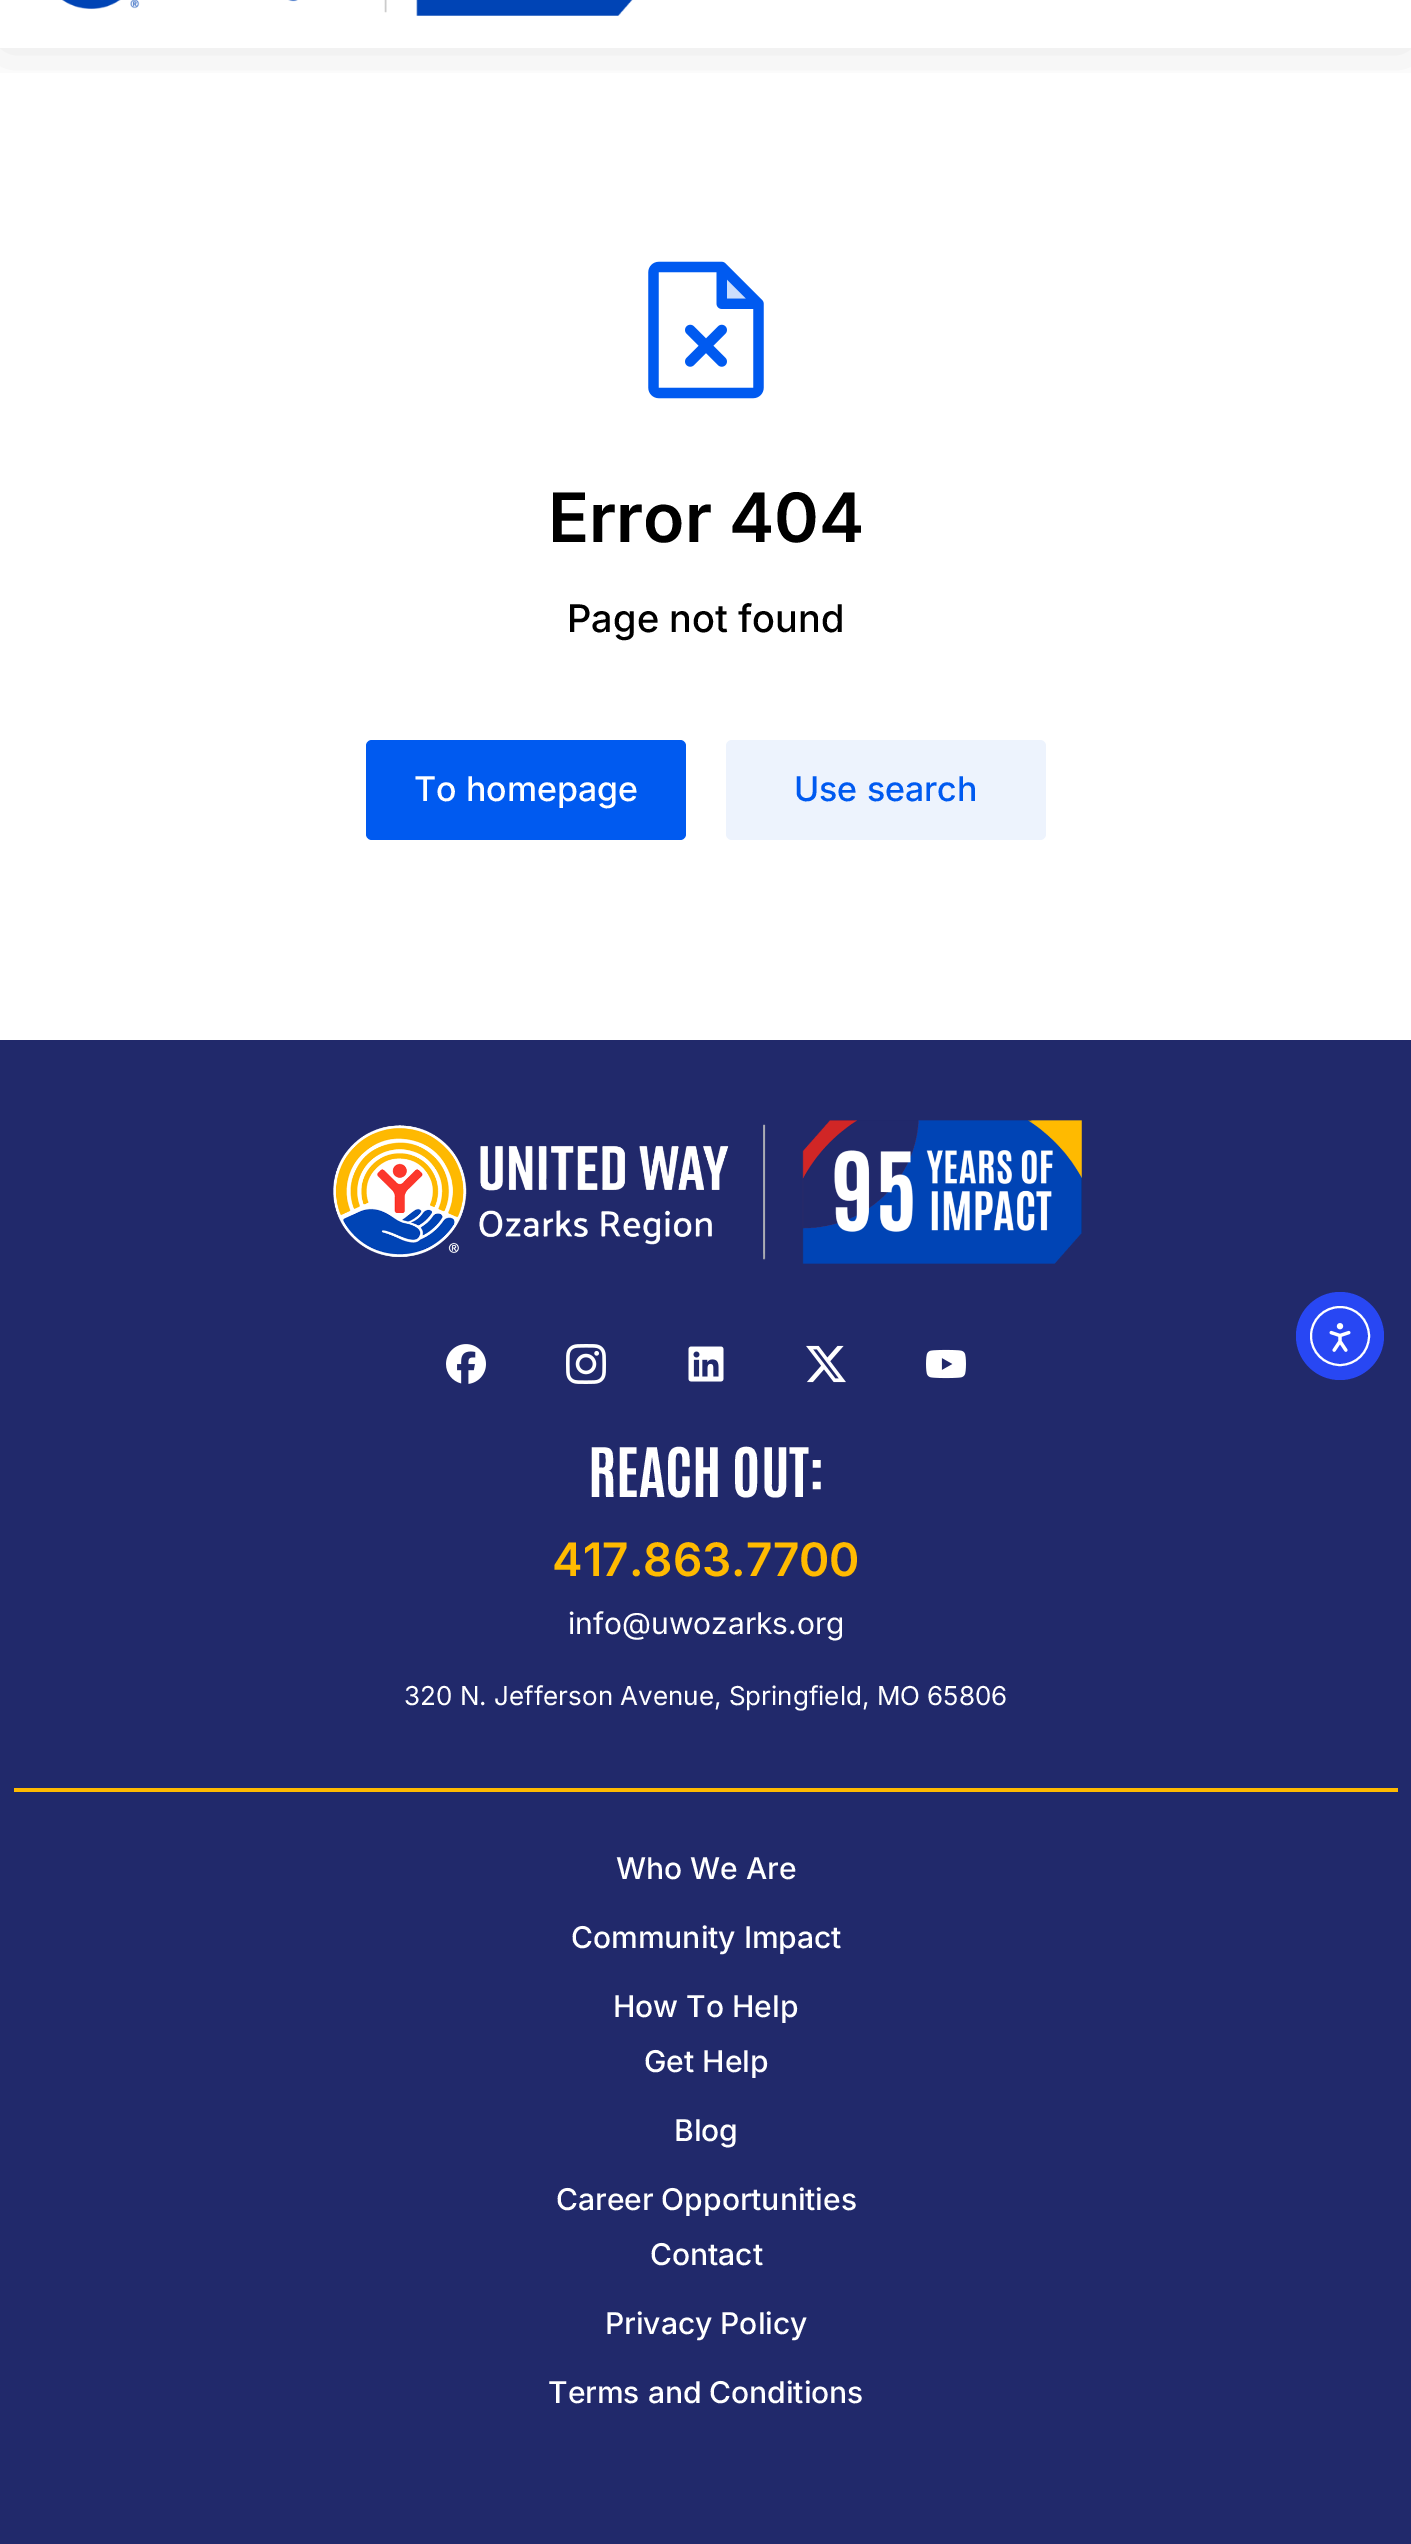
%!PS
<< /PageSize [1411 2544] /PageUsesTransparency true >> setpagedevice
/f/fill load def
/s/stroke load def
/q/gsave load def
/Q_/grestore load def
/w/setlinewidth load def
/C { dup -16 bitshift 255 div exch dup -8 bitshift 255 and 255 div exch 255 and 255 div setrgbcolor } def
/F { [ exch dup neg 0 0 3 -1 roll 0 0 ] selectfont } def
/T { moveto show } def
/R { rectfill } def
/A { dup .setfillconstantalpha .setstrokeconstantalpha } def
/O { newpath 0 360 arc closepath } def
/Q { 5 dict begin { /r /h /w /y /x } { exch def } forall
  x r add y moveto x w add y 2 copy h add r arct x w add y h add x 1 index r arct
  x y h add x y r arct x y 2 copy exch w add exch r arct closepath end } def
/S { 12 dict begin { /a /b /q /h /w /y /x } { exch def } forall gsave /was 0 def
  9 -2 -9 { dup b mul 4 div /e exch def 1 sub .425 mul 2.718 exch exp 1 add a .99 .min exch div /now exch def
    1 1 now sub 1 was sub div sub A /was now def
    w h .min e 2 mul add 0 gt { x e sub y e sub w e 2 mul add h e 2 mul add
      q e add b .6 mul add w h .min 2 div e add .min 0 .max Q fill } if } for grestore end } def
/I { 5 dict begin { /h /w /y /x /name } { exch def } forall
  gsave x y translate w h scale
  w h 8 [w 0 0 h 0 0] name (r) file false 3 colorimage grestore end } def
0 .pushpdf14devicefilter
0 2544 translate 1 -1 scale
4 setmiterlimit
16#FFFFFF C
0 0 1411 2544 R
q
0 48 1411 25 rectclip
16#000000 C
0 -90 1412 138 0 30 .1 S
Q_
(1.rgb) 62 0 571 16 I
(2.rgb) 648 261 116 138 I
/Inter-SemiBold 68 F
16#000000 C
(Error 404) 548 542 T
/Inter-Medium 38 F
(Page not found) 567 632 T
16#005AF0 C
366 740 320 100 6 Q f
/Inter-Medium 34 F
16#FFFFFF C
(To homepage) 414 801 T
16#EDF3FD C
726 740 320 100 6 Q f
16#005AF0 C
(Use search) 794 801 T
16#21296B C
0 1040 1411 1504 R
(3.rgb) 333 1120 749 144 I
(4.rgb) 446 1344 40 40 I
(5.rgb) 566 1344 40 40 I
(6.rgb) 688 1346 36 36 I
(7.rgb) 806 1345 40 38 I
(8.rgb) 926 1349 40 30 I
/Antonio-Bold 58 F
16#FFFFFF C
(REACH OUT:) 588 1497 T
/Inter-SemiBold 46 F
16#FFBA00 C
(417.863.7700) 552 1576 T
/Inter-Regular 30 F
16#FFFFFF C
(info@uwozarks.org) 568 1634 T
/Inter-Regular 26 F
(320 N. Jefferson Avenue, Springfield, MO 65806) 404 1705 T
16#FFBA00 C
14 1788 1384 4 R
/Inter-Medium 30 F
16#FFFFFF C
(Who We Are) 616 1879 T
(Community Impact) 571 1948 T
(How To Help) 613 2017 T
(Get Help) 644 2072 T
(Blog) 674 2141 T
(Career Opportunities) 556 2210 T
(Contact) 650 2265 T
(Privacy Policy) 605 2334 T
(Terms and Conditions) 548 2403 T
16#2847F3 C
1340 1336 44 O f
16#FFFFFF C
2 w
1340 1336 29 O s
(9.rgb) 1329 1323 22 29 I
.poppdf14devicefilter showpage
